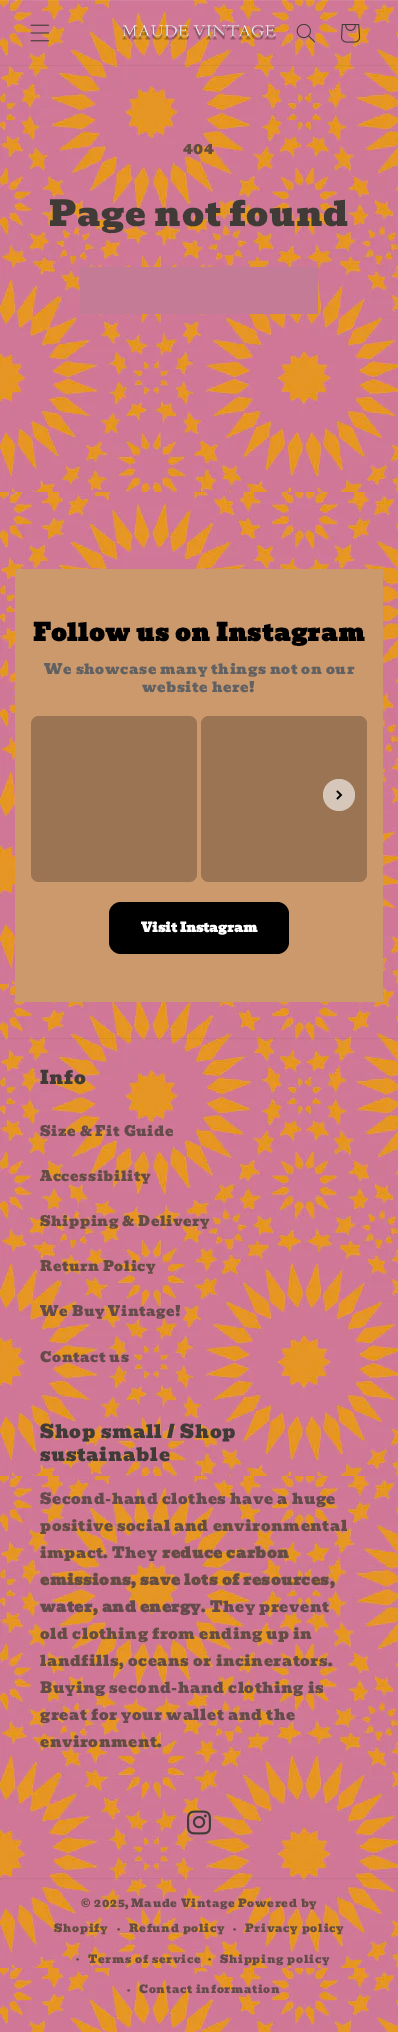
%!PS
<< /PageSize [398 2032] /PageUsesTransparency true >> setpagedevice
/m/moveto load def
/l/rlineto load def
/f/fill load def
/s/stroke load def
/w/setlinewidth load def
/C { dup -16 bitshift 255 div exch dup -8 bitshift 255 and 255 div exch 255 and 255 div setrgbcolor } def
/F { [ exch dup neg 0 0 3 -1 roll 0 0 ] selectfont } def
/T { moveto show } def
/R { rectfill } def
/A { dup .setfillconstantalpha .setstrokeconstantalpha } def
/O { newpath 0 360 arc closepath } def
/Q { 5 dict begin { /r /h /w /y /x } { exch def } forall
  x r add y moveto x w add y 2 copy h add r arct x w add y h add x 1 index r arct
  x y h add x y r arct x y 2 copy exch w add exch r arct closepath end } def
/I { 5 dict begin { /h /w /y /x /name } { exch def } forall
  gsave x y translate w h scale
  w h 8 [w 0 0 h 0 0] name (r) file false 3 colorimage grestore end } def
0 .pushpdf14devicefilter
0 2032 translate 1 -1 scale
4 setmiterlimit
16#FFFFFF C
0 0 398 2032 R
(1.rgb) 0 0 398 2032 I
0.08 A
0 0 398 1 R
16#403B37 C
0 65 398 1 R
1 A
(2.rgb) 30 24 20 18 I
(3.rgb) 122 25 154 15 I
(4.rgb) 296 23 19 20 I
(5.rgb) 341 24 20 19 I
/Bevan-Regular 15 F
16#664D43 C
183 154 m .6 0 (404) ashow
/Bevan-Regular 34.5 F
16#403B37 C
49 226 m .7 0 (Page not found) ashow
16#C47B95 C
80 267 238 47 R
16#CC996D C
15 569 368 433 R
/Bevan-Bold 24 F
16#000000 C
33 641 m .7 0 (Follow us on Instagram) ashow
/Bevan-Regular 14 F
16#616161 C
44 674 m .6 0 (We showcase many things not on our) ashow
142 692 m .6 0 (website here!) ashow
16#9B7453 C
31 716 166 166 8 Q f
201 716 166 166 8 Q f
16#D7C7BA C
339 795 16 O f
16#000000 C
1.7 w
337 791 m 4 4 l -4 4 l s
109 902 180 52 12 Q f
/Bevan-Bold 13 F
16#FFFFFF C
(Visit Instagram) 141 932 T
0.08 A
16#403B37 C
0 1038 398 1 R
/Bevan-Regular 18.4 F
1 A
40 1084 m .7 0 (Info) ashow
/Bevan-Regular 14 F
16#654B4B C
40 1136 m .6 0 (Size & Fit Guide) ashow
16#664D43 C
40 1181 m .6 0 (Accessibility) ashow
40 1226 m .6 0 (Shipping & Delivery) ashow
40 1271 m .6 0 (Return Policy) ashow
16#654B4B C
40 1316 m .6 0 (We Buy Vintage!) ashow
40 1362 m .6 0 (Contact us) ashow
/Bevan-Regular 18.4 F
16#403B37 C
40 1438 m .7 0 (Shop small / Shop) ashow
40 1461 m .7 0 (sustainable) ashow
/Bevan-Regular 15 F
16#654B4B C
40 1504 m .6 0 (Second-hand clothes have a huge) ashow
16#664D43 C
40 1531 m .6 0 (positive social and environmental) ashow
40 1558 m .6 0 (impact.) ashow
16#654B4B C
112 1558 m .6 0 (They) ashow
/Bevan-Bold 15 F
16#664D43 C
162 1558 m .6 0 (reduce carbon) ashow
40 1585 m .6 0 (emissions, save lots of resources,) ashow
16#654B4B C
40 1612 m .6 0 (water, and energy) ashow
/Bevan-Regular 15 F
201 1612 m .6 0 (. They prevent) ashow
16#664D43 C
40 1639 m .6 0 (old clothing from ending up in) ashow
40 1666 m .6 0 (landfills, oceans or incinerators.) ashow
16#654B4B C
40 1693 m .6 0 (Buying second-hand clothing is) ashow
40 1720 m .6 0 (great for your wallet and the) ashow
16#664D43 C
40 1747 m .6 0 (environment.) ashow
(6.rgb) 187 1810 24 25 I
0.08 A
16#403B37 C
0 1878 398 1 R
/Bevan-Regular 11 F
1 A
16#664D43 C
81 1907 m .75 0 (© 2025,) ashow
16#654B4B C
131 1907 m .75 0 (Maude Vintage) ashow
16#664D43 C
238 1907 m .75 0 (Powered by) ashow
54 1932 m .75 0 (Shopify) ashow
/Bevan-Regular 10 F
16#654B4B C
117 1932 m .75 0 (·) ashow
/Bevan-Regular 11 F
16#664D43 C
129 1932 m .75 0 (Refund policy) ashow
/Bevan-Regular 10 F
16#654B4B C
233 1932 m .75 0 (·) ashow
/Bevan-Regular 11 F
16#664D43 C
245 1932 m .75 0 (Privacy policy) ashow
/Bevan-Regular 10 F
16#654B4B C
76 1962 m .75 0 (·) ashow
/Bevan-Regular 11 F
16#664D43 C
88 1963 m .75 0 (Terms of service) ashow
/Bevan-Regular 10 F
16#695232 C
208 1962 m .75 0 (·) ashow
/Bevan-Regular 11 F
16#654B4B C
220 1963 m .75 0 (Shipping policy) ashow
/Bevan-Regular 10 F
16#644A51 C
127 1993 m .75 0 (·) ashow
/Bevan-Regular 11 F
16#654B4B C
139 1993 m .75 0 (Contact information) ashow
.poppdf14devicefilter showpage
